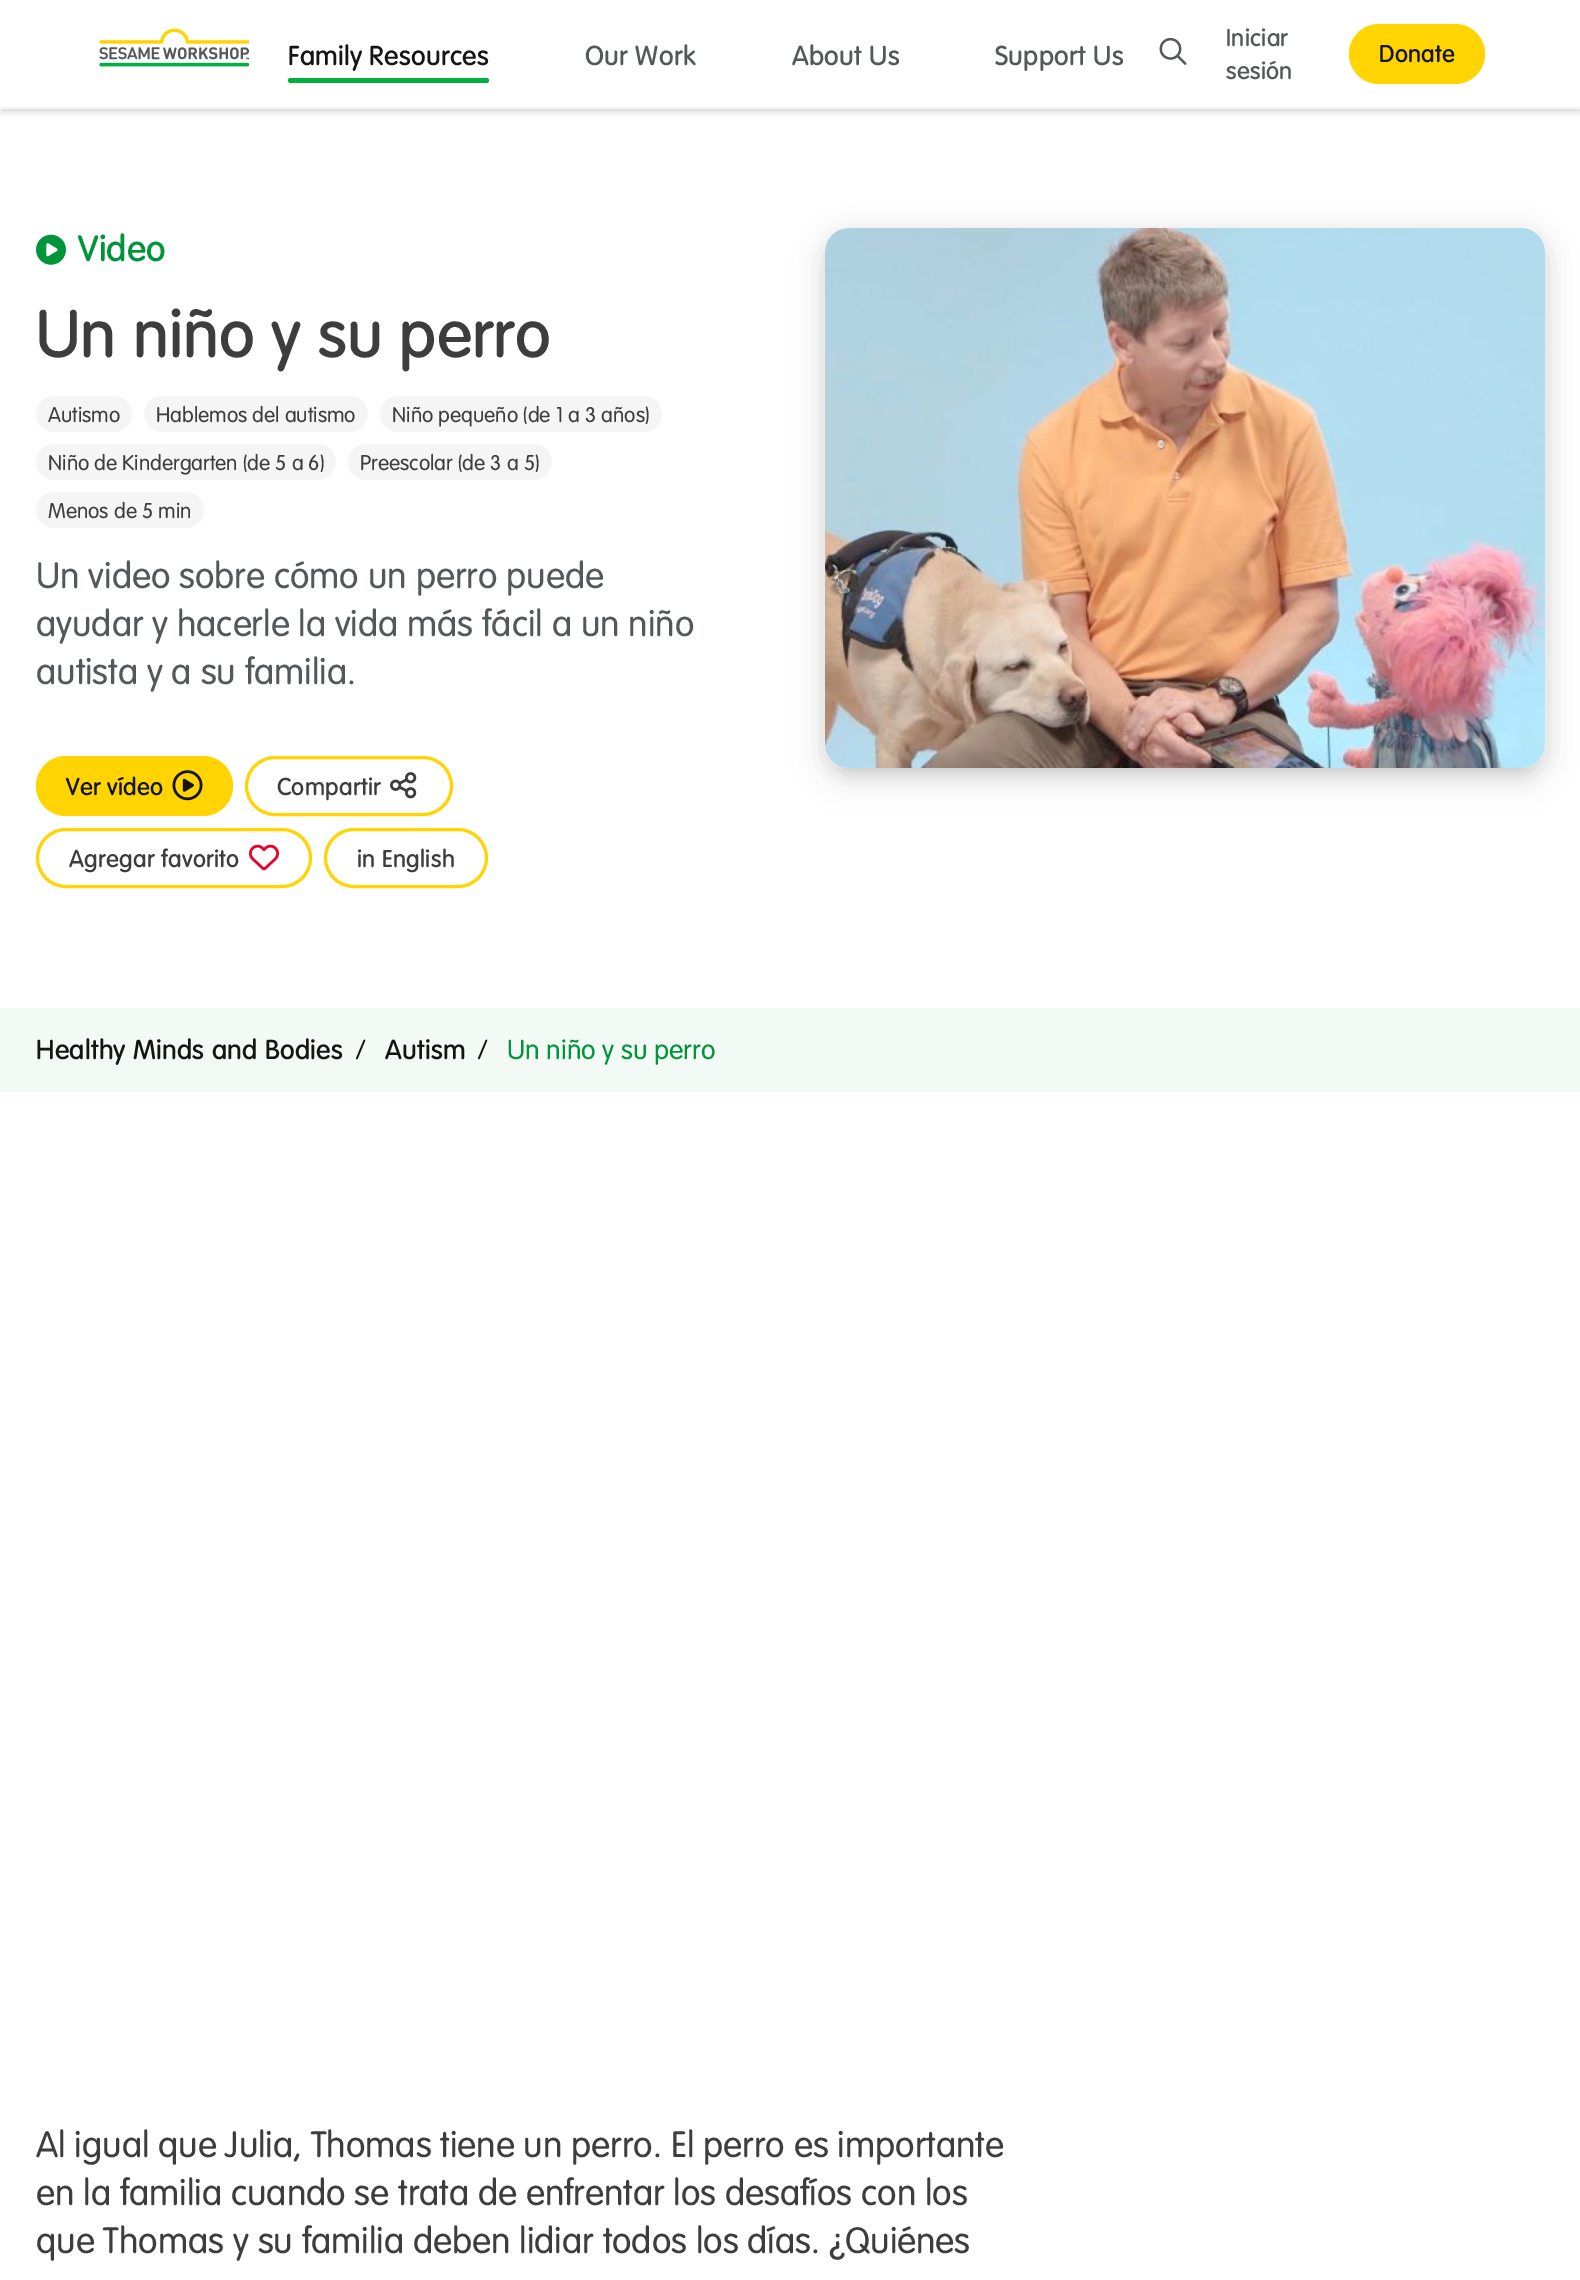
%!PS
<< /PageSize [1580 2280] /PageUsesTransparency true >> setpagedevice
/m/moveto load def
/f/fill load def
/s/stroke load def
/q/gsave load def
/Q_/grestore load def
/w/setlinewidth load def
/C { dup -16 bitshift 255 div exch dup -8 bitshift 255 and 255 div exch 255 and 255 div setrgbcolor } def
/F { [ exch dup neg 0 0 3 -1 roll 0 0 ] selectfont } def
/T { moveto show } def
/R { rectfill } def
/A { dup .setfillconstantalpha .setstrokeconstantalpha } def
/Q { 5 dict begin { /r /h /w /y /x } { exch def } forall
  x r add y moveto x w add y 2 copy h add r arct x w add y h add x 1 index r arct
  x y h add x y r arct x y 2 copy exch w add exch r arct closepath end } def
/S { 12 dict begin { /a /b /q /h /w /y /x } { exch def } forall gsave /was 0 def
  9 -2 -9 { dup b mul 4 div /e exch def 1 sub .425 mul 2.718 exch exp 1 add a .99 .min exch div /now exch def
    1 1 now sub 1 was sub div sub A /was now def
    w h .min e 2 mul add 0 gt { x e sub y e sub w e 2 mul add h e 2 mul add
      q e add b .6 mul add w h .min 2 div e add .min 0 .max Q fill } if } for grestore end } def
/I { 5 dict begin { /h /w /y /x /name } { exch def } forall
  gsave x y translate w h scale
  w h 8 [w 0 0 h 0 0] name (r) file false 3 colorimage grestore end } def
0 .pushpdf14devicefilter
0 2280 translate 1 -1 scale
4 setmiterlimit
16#FFFFFF C
0 0 1580 2280 R
q
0 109 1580 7 rectclip
16#000000 C
0 6 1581 108 0 4 .07 S
Q_
q
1 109 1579 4 rectclip
16#000000 C
2 5 1578 105 0 3 .1 S
Q_
16#F5F5F5 C
0 107 1580 2 R
(1.rgb) 99 28 151 39 I
/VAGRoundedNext-Medium 27 F
16#151515 C
288 65 m .25 0 (Family Resources) ashow
16#00B140 C
288 78 201 5 2.5 Q f
16#54585A C
585 65 m .25 0 (Our Work) ashow
792 65 m .25 0 (About Us) ashow
995 65 m .25 0 (Support Us) ashow
(2.rgb) 1159 37 28 28 I
/VAGRoundedNext-Medium 24 F
1226 46 m .25 0 (Iniciar) ashow
1226 79 m .25 0 (sesión) ashow
16#FFD400 C
1349 24 136 60 30 Q f
16#151515 C
1379 62 m .25 0 (Donate) ashow
(3.rgb) 36 234 30 31 I
/VAGRoundedNext-Medium 36 F
16#00953B C
78 261 m .25 0 (Video) ashow
/VAGRoundedNext-Medium 66 F
16#3D3D3D C
(Un niño y su perro) 36 357 T
16#F5F5F5 C
36 396 96 36 18 Q f
/VAGRoundedNext-Regular 21 F
16#3D3D3D C
(Autismo) 48 422 T
16#F5F5F5 C
144 396 224 36 18 Q f
16#3D3D3D C
(Hablemos del autismo) 156 422 T
16#F5F5F5 C
380 396 282 36 18 Q f
16#3D3D3D C
(Niño pequeño \(de 1 a 3 años\)) 392 422 T
16#F5F5F5 C
36 444 300 36 18 Q f
16#3D3D3D C
(Niño de Kindergarten \(de 5 a 6\)) 48 470 T
16#F5F5F5 C
348 444 204 36 18 Q f
16#3D3D3D C
(Preescolar \(de 3 a 5\)) 360 470 T
16#F5F5F5 C
36 492 168 36 18 Q f
16#3D3D3D C
(Menos de 5 min) 48 518 T
/VAGRoundedNext-Regular 36 F
16#54585A C
(Un video sobre cómo un perro puede) 36 588 T
(ayudar y hacerle la vida más fácil a un niño) 36 636 T
(autista y a su familia.) 36 684 T
16#FFD400 C
36 756 197 60 30 Q f
/VAGRoundedNext-Medium 24 F
16#151515 C
66 795 m .25 0 (Ver vídeo) ashow
(4.rgb) 172 770 31 31 I
16#FFD400 C
3 w
246.5 757.5 205 57 28.5 Q s
16#3D3D3D C
277 795 m .25 0 (Compartir) ashow
(5.rgb) 390 772 27 27 I
16#FFD400 C
37.5 829.5 273 57 28.5 Q s
16#3D3D3D C
69 867 m .25 0 (Agregar favorito) ashow
(6.rgb) 249 844 30 27 I
16#FFD400 C
325.5 829.5 161 57 28.5 Q s
16#3D3D3D C
357 867 m .25 0 (in English) ashow
16#000000 C
818 225 735 555 32 11 .06 S
822 237 726 546 27 15 .07 S
833 245 705 525 17 6 .1 S
(7.rgb) 825 228 720 540 I
16#F3FAF6 C
0 1008 1580 84 R
/VAGRoundedNext-Medium 27 F
16#151515 C
36 1059 m .25 0 (Healthy Minds and Bodies) ashow
/VAGRoundedNext-Regular 27 F
(/) 355 1059 T
/VAGRoundedNext-Medium 27 F
385 1059 m .25 0 (Autism) ashow
/VAGRoundedNext-Regular 27 F
(/) 477 1059 T
16#00953B C
(Un niño y su perro) 507 1059 T
/VAGRoundedNext-Regular 36 F
16#3D3D3D C
(Al igual que Julia, Thomas tiene un perro. El perro es importante) 36 2157 T
(en la familia cuando se trata de enfrentar los desafíos con los) 36 2205 T
(que Thomas y su familia deben lidiar todos los días. ¿Quiénes) 36 2253 T
.poppdf14devicefilter showpage
